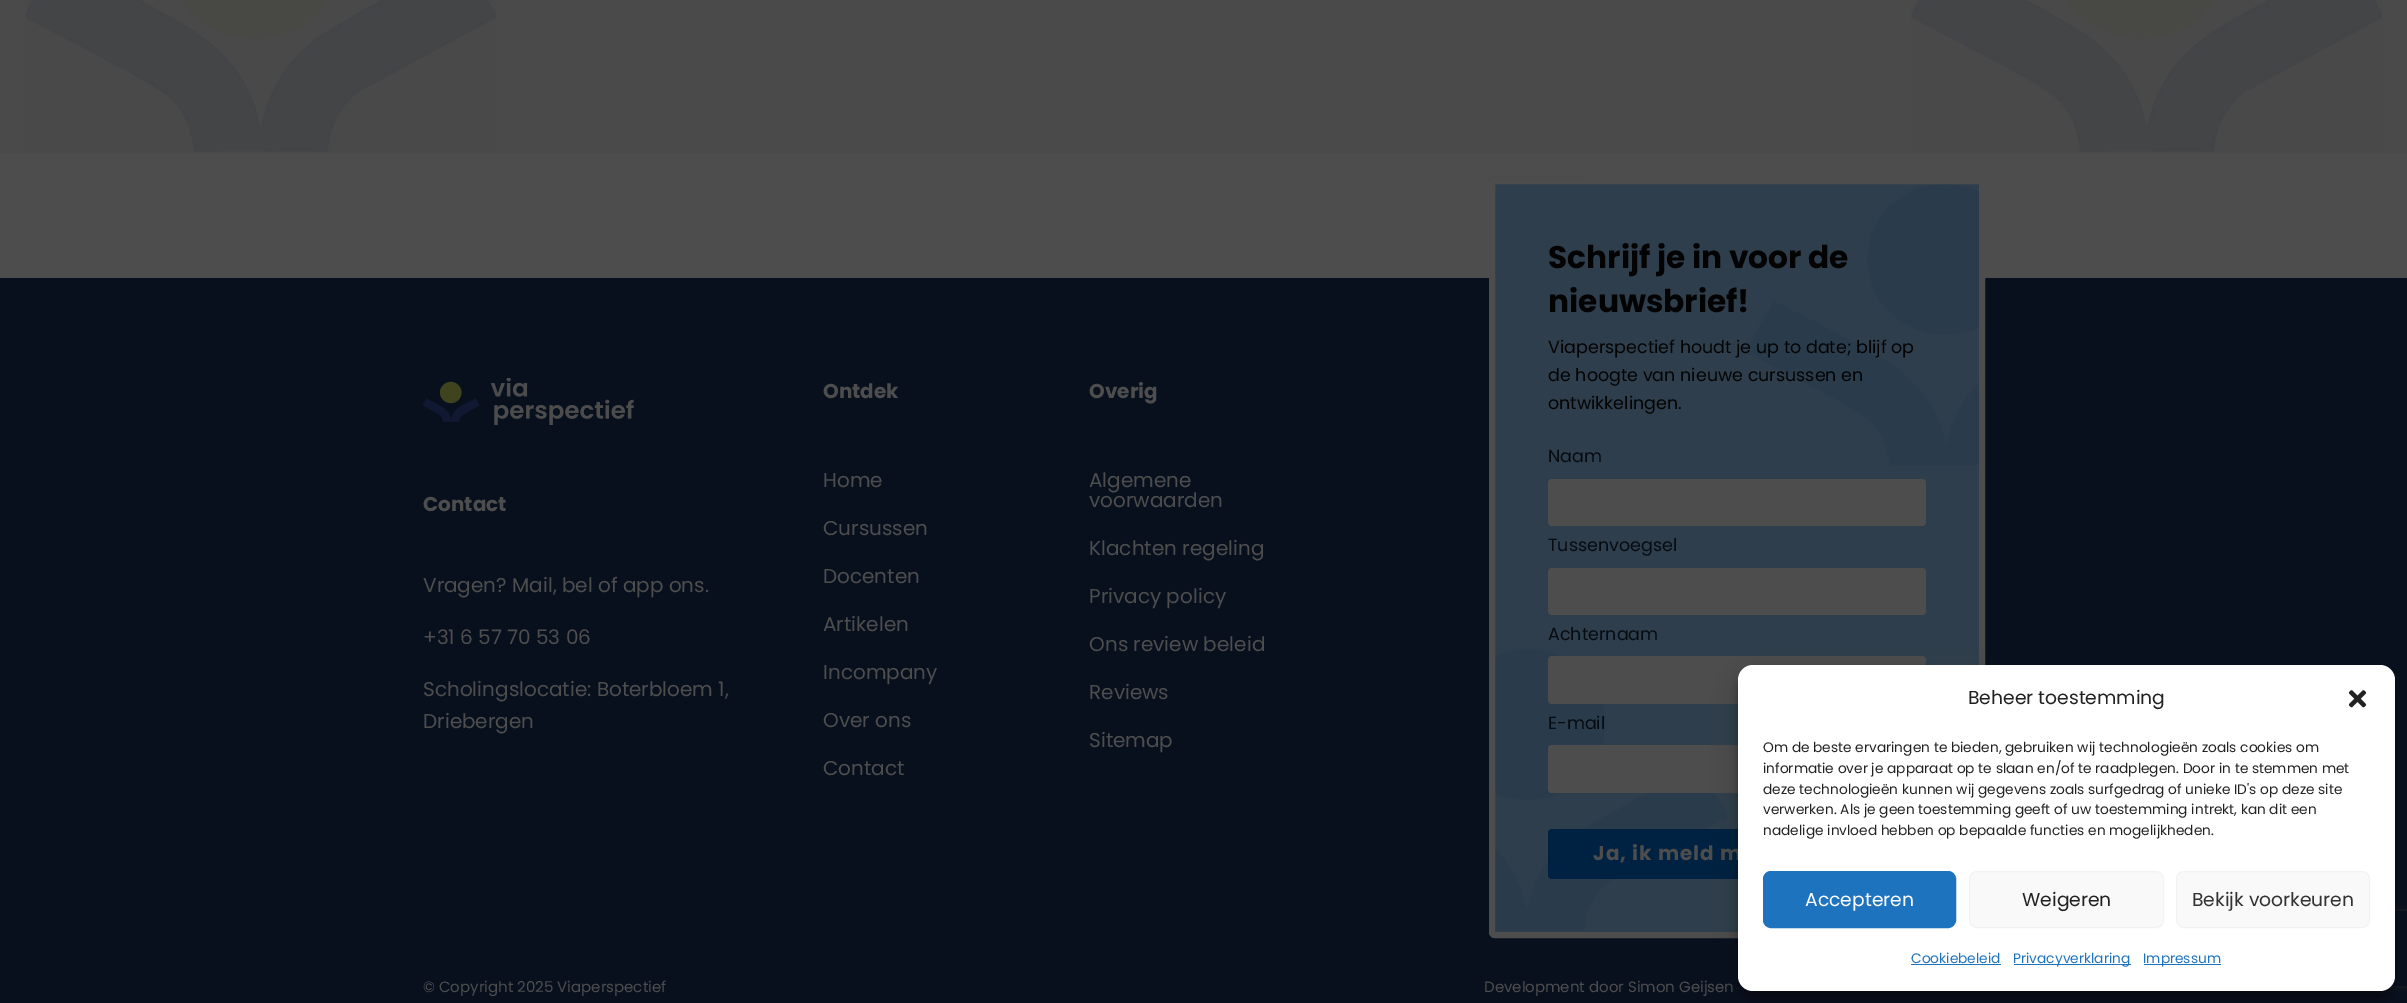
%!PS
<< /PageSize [2407 1003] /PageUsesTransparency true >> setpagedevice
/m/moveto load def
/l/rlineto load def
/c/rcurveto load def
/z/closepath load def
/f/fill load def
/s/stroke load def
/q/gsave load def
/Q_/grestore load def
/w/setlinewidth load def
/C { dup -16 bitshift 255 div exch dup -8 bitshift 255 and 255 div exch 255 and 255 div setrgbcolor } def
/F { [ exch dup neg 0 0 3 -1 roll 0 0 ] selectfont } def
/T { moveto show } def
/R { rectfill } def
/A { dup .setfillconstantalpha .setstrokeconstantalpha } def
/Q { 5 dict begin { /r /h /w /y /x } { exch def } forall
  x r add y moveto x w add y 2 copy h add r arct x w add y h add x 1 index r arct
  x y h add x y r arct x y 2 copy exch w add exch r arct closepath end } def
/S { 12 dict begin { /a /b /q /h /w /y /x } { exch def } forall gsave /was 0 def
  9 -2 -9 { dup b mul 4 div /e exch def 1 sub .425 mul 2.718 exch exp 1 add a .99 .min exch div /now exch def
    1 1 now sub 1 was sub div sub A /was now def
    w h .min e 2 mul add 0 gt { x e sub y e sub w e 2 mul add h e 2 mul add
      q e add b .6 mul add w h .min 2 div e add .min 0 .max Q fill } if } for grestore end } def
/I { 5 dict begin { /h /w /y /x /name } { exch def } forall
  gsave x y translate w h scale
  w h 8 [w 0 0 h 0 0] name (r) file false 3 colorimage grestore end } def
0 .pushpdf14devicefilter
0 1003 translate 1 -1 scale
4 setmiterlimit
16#4D4D4D C
0 0 2407 1003 R
16#4A4A4A C
0 0 2407 153 R
(1.rgb) 25 0 471 152 I
(2.rgb) 1911 0 472 152 I
16#08101E C
0 278 2407 725 R
(3.rgb) 423 378 211 47 I
/Poppins-Bold 20 F
16#4D4D4D C
(Contact) 423 511 T
/Poppins-Regular 20 F
(Vragen? Mail, bel of app ons.) 423 592 T
(+31 6 57 70 53 06) 423 644 T
(Scholingslocatie: Boterbloem 1,) 423 696 T
(Driebergen) 423 728 T
/Poppins-Bold 20 F
(Ontdek) 823 398 T
/Poppins-Regular 20 F
(Home) 823 487 T
(Cursussen) 823 535 T
(Docenten) 823 583 T
(Artikelen) 823 631 T
(Incompany) 823 679 T
(Over ons) 823 727 T
(Contact) 823 775 T
/Poppins-Bold 20 F
(Overig) 1089 398 T
/Poppins-Regular 20 F
(Algemene) 1089 487 T
(voorwaarden) 1089 507 T
(Klachten regeling) 1089 555 T
(Privacy policy) 1089 603 T
(Ons review beleid) 1089 651 T
(Reviews) 1089 699 T
(Sitemap) 1089 747 T
16#2F3E4D C
1489 178 496 760 6 Q f
(4.rgb) 1489 177 490 754 I
16#4D4D4D C
6 w
1492 181 490 754 3 Q s
/Poppins-Bold 31.25 F
16#030303 C
(Schrijf je in voor de) 1548 268 T
(nieuwsbrief!) 1548 312 T
/Poppins-Regular 17.5 F
(Viaperspectief houdt je up to date; blijf op) 1548 353 T
(de hoogte van nieuwe cursussen en) 1548 381 T
(ontwikkelingen.) 1548 409 T
16#050B11 C
(Naam) 1548 462 T
16#4D4D4D C
1548 479 378 47 4 Q f
16#050B11 C
(Tussenvoegsel) 1548 551 T
16#4D4D4D C
1548 568 378 47 4 Q f
16#050B11 C
(Achternaam) 1548 640 T
16#4D4D4D C
1548 656 378 48 4 Q f
16#050B11 C
(E-mail) 1548 729 T
16#4D4D4D C
1548 745 378 48 4 Q f
q
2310 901 m 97 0 l 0 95 l -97 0 l z 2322.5 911 m 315 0 l 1.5 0 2.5 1 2.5 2.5 c 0 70 l 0 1.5 -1 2.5 -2.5 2.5 c -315 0 l -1.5 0 -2.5 -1 -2.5 -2.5 c 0 -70 l 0 -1.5 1 -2.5 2.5 -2.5 c z eoclip newpath
16#262626 C
2320 911 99 75 2.5 3 1 S
Q_
16#002242 C
1548 829 311 50 4 Q f
/Poppins-Bold 20 F
16#4D4D4D C
1593 860 m 1 0 (Ja, ik meld m) ashow
/Poppins-Regular 15 F
(© Copyright 2025 Viaperspectief) 423 992 T
(Development door Simon Geijsen) 1484 992 T
16#000000 C
1738 673 657 326 15 4 .23 S
1738 678 657 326 15 12.5 .19 S
16#FFFFFF C
1738 665 657 326 15 Q f
/Poppins-Regular 18.75 F
16#222222 C
(Beheer toestemming) 1968 704 T
(5.rgb) 2348 690 19 18 I
/Poppins-Regular 13.75 F
(Om de beste ervaringen te bieden, gebruiken wij technologieën zoals cookies om) 1763 752 T
(informatie over je apparaat op te slaan en/of te raadplegen. Door in te stemmen met) 1763 773 T
(deze technologieën kunnen wij gegevens zoals surfgedrag of unieke ID's op deze site) 1763 794 T
(verwerken. Als je geen toestemming geeft of uw toestemming intrekt, kan dit een) 1763 814 T
(nadelige invloed hebben op bepaalde functies en mogelijkheden.) 1763 835 T
16#1E73BE C
1763.5 871.5 192 56 7.5 Q q f Q_
1 w
s
/Poppins-Regular 18.75 F
16#FFFFFF C
(Accepteren) 1805 906 T
16#F9F9F9 C
1969.5 871.5 194 56 7.5 Q q f Q_
16#F2F2F2 C
s
16#222222 C
(Weigeren) 2022 906 T
16#F9F9F9 C
2176.5 871.5 193 56 7.5 Q q f Q_
16#F2F2F2 C
s
16#333333 C
(Bekijk voorkeuren) 2192 906 T
/Poppins-Regular 13.75 F
16#1E73BE C
(Cookiebeleid) 1911 963 T
1911 964 90 1 R
2014 964 117 1 R
(Privacyverklaring) 2013 963 T
2144 964 77 1 R
(Impressum) 2143 963 T
.poppdf14devicefilter showpage
